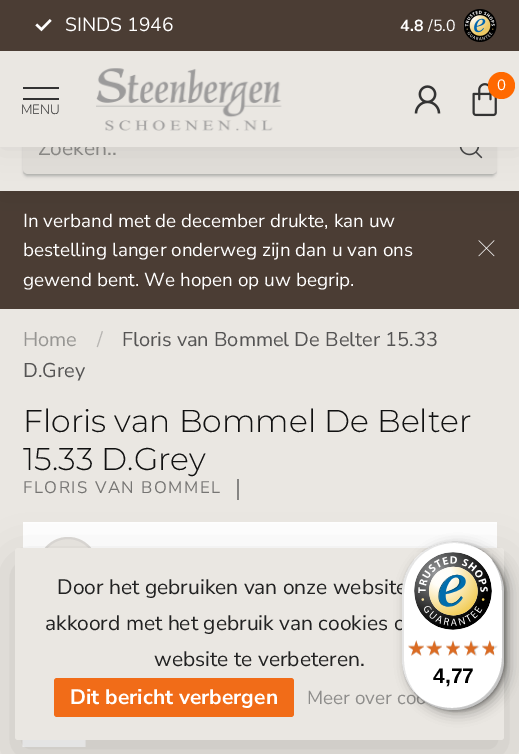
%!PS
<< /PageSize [519 754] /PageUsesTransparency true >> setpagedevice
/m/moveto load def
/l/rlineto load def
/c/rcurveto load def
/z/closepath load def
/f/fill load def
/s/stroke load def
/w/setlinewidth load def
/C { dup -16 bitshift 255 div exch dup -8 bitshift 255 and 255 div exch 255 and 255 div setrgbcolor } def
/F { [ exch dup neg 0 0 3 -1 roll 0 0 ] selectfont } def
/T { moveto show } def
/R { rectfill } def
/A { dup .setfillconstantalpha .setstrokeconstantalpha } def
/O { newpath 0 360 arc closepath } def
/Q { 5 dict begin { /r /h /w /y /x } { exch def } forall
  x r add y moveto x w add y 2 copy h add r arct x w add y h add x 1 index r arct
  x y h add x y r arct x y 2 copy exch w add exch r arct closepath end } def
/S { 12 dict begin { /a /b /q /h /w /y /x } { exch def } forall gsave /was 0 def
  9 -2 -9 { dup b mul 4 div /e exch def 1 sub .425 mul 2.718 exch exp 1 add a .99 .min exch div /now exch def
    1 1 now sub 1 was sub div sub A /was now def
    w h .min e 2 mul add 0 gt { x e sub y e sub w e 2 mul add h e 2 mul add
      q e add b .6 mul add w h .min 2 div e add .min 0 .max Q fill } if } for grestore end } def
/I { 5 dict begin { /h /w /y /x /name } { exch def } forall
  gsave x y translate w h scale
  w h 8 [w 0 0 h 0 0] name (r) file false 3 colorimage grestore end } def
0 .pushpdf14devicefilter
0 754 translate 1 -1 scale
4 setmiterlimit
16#EAE7E2 C
0 0 519 754 R
16#4B3D34 C
0 191 519 118 R
(7.rgb) 478 240 17 17 I
16#000000 C
0 108 519 83 0 16.5 .08 S
16#EAE7E2 C
0 147 519 44 R
16#9B9B9B C
24 128 471 48 3 1.5 .75 S
16#EAE7E2 C
23 123 474 51 5 Q f
0.05 A
16#333333 C
23 147 474 27 R
1 A
(6.rgb) 459 147 24 12 I
16#000000 C
0 0 519 147 0 15 .07 S
/NunitoSans-Regular 21 F
16#888784 C
(Zoeken..) 38 155 T
16#EAE7E2 C
0 51 519 96 R
16#4B3D34 C
0 0 519 51 R
(1.rgb) 35 19 17 13 I
/NunitoSans-Regular 19.25 F
16#FFFFFF C
(SINDS 1946) 65 31 T
/NunitoSans-Bold 16 F
(4.8) 400 31 T
/NunitoSans-Regular 16 F
(/5.0) 428 31 T
(2.rgb) 464 9 33 33 I
(3.rgb) 96 68 186 63 I
(4.rgb) 414 85 27 29 I
(5.rgb) 472 83 25 34 I
16#FF6900 C
501.5 85.5 13.5 O f
/NunitoSans-Regular 15 F
16#FFFFFF C
(0) 497 90 T
16#333333 C
23 87 36 2 R
23 98 36 2 R
/NunitoSans-Light 13.5 F
(MENU) 21 114 T
/NunitoSans-Regular 18.9 F
16#FFFFFF C
(In verband met de december drukte, kan uw) 23 227 T
(bestelling langer onderweg zijn dan u van ons) 23 256 T
(gewend bent. We hopen op uw begrip.) 23 286 T
/NunitoSans-Regular 20 F
16#979693 C
(Home) 23 346 T
16#B8B6B3 C
(/) 97 346 T
16#555454 C
(Floris van Bommel De Belter 15.33) 122 346 T
(D.Grey) 23 377 T
/Montserrat-Light 31.5 F
16#111111 C
(Floris van Bommel De Belter) 23 432 T
(15.33 D.Grey) 23 470 T
/NunitoSans-Regular 16.75 F
16#767573 C
23 493 m 1.5 0 (FLORIS VAN BOMMEL) ashow
16#868583 C
237 479 2 21 R
(8.rgb) 23 522 474 26 I
16#EAE7E2 C
68 567 30 O f
0.17 A
16#9B9B9B C
2 w
68 567 29 O s
1 A
(18.rgb) 22 740 64 7 I
16#000000 C
15 563 489 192 3 22.5 .15 S
16#EAE7E2 C
15 548 489 192 3 Q f
/NunitoSans-Regular 21 F
16#222222 C
(Door het gebruiken van onze website) 57 594 T
(akkoord met het gebruik van cookies o) 45 630 T
(website te verbeteren.) 154 666 T
16#F16C18 C
54 678 240 39 3 Q f
/NunitoSans-Bold 21 F
16#FFFFFF C
(Dit bericht verbergen) 70 704 T
/NunitoSans-Regular 18.9 F
16#8E8D8B C
(Meer over coo) 307 704 T
16#000000 C
407 546 102 168 51 6 .15 S
404 543 102 168 51 1.5 .15 S
0.1 A
454 543 m 10 0 19 3 27 7 c -8 -5 -18 -8 -28 -8 c -28 0 -51 23 -51 51 c 0 66 l 0 18 9 34 23 43 c -13 -10 -21 -25 -21 -42 c 0 -66 l 0 -28 22 -51 50 -51 c z f
0.2 A
414 692 m 9 11 23 18 39 18 c 28 0 51 -23 51 -51 c 0 -66 l 0 -13 -5 -25 -13 -34 c 7 9 11 20 11 32 c 0 66 l 0 28 -22 51 -50 51 c -15 0 -29 -6 -38 -16 c z f
1 A
407 546 102 168 51 6 .15 S
404 543 102 168 51 1.5 .15 S
16#FFFFFF C
402 542 102 168 51 Q f
0.1 A
16#000000 C
454 543 m 10 0 19 3 27 7 c -8 -5 -18 -8 -28 -8 c -28 0 -51 23 -51 51 c 0 66 l 0 18 9 34 23 43 c -13 -10 -21 -25 -21 -42 c 0 -66 l 0 -28 22 -51 50 -51 c z f
0.2 A
414 692 m 9 11 23 18 39 18 c 28 0 51 -23 51 -51 c 0 -66 l 0 -13 -5 -25 -13 -34 c 7 9 11 20 11 32 c 0 66 l 0 28 -22 51 -50 51 c -15 0 -29 -6 -38 -16 c z f
16#323232 C
414 692 m 10 11 24 18 39 18 c 28 0 51 -23 51 -51 c 0 -66 l 0 -12 -4 -23 -11 -32 c 6 9 10 19 10 31 c 0 66 l 0 28 -23 51 -51 51 c -15 0 -28 -6 -38 -17 c z f
0.3 A
16#FFFFFF C
414 692 m 10 11 24 18 39 18 c 28 0 51 -23 51 -51 c 0 -66 l 0 -15 -7 -29 -18 -39 c 11 10 17 23 17 38 c 0 66 l 0 28 -23 51 -51 51 c -15 0 -28 -6 -38 -17 c z f
1 A
(9.rgb) 414 552 78 78 I
(10.rgb) 408 640 16 16 I
(11.rgb) 428 641 14 15 I
(11.rgb) 446 641 14 15 I
(12.rgb) 464 640 16 16 I
(12.rgb) 482 640 16 16 I
(13.rgb) 408 640 16 16 I
(14.rgb) 426 640 16 16 I
(15.rgb) 446 640 14 16 I
(16.rgb) 464 640 14 16 I
(17.rgb) 482 640 12 16 I
/LiberationSans-Bold 21 F
16#000000 C
(4,77) 433 683 T
.poppdf14devicefilter showpage
